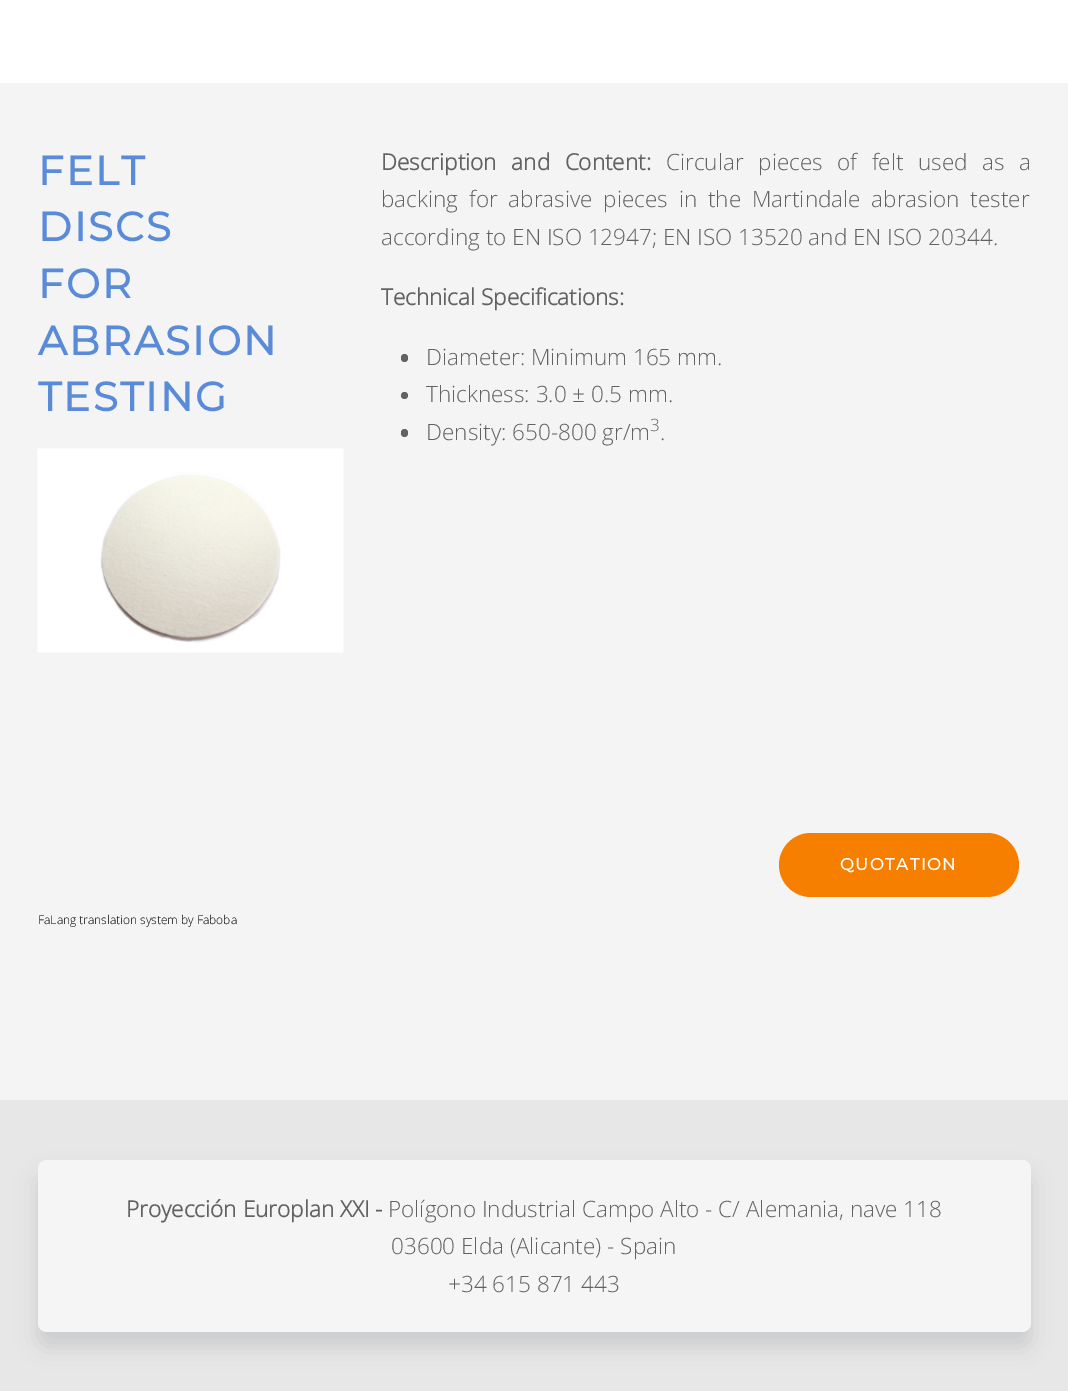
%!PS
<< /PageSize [1068 1391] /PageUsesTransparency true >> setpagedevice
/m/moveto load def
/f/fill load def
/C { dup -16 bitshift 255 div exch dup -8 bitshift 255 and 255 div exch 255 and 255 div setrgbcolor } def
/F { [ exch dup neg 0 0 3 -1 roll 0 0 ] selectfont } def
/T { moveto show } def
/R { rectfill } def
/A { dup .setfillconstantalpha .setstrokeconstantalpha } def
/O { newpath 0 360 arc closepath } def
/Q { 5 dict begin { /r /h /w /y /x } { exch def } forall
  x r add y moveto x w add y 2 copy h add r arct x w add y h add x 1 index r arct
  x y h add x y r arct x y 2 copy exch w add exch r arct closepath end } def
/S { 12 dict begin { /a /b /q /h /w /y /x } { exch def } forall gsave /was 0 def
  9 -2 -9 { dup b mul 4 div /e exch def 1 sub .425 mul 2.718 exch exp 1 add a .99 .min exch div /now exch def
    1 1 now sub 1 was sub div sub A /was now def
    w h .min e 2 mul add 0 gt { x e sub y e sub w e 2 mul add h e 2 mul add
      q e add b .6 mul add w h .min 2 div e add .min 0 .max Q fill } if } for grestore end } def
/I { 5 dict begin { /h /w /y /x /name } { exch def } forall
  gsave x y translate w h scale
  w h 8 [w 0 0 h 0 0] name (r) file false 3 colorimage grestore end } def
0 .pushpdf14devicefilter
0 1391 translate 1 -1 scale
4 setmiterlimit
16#F4F4F4 C
0 0 1068 1391 R
16#FFFFFF C
0 0 1068 83 R
/Montserrat-Bold 40.5 F
16#598BD8 C
38 185 m 2.25 0 (FELT) ashow
38 241 m 2.25 0 (DISCS) ashow
38 298 m 2.25 0 (FOR) ashow
38 355 m 2.25 0 (ABRASION) ashow
38 411 m 2.25 0 (TESTING) ashow
(1.rgb) 37 448 307 205 I
/OpenSans-Bold 22.5 F
16#626262 C
381 170 m 8.75 0 32 (Description and Content:) widthshow
/OpenSans-Light 22.5 F
666 170 m 8.75 0 32 (Circular pieces of felt used as a) widthshow
381 207 m 5 0 32 (backing for abrasive pieces in the Martindale abrasion tester) widthshow
(according to EN ISO 12947; EN ISO 13520 and EN ISO 20344.) 381 245 T
/OpenSans-Bold 22.5 F
(Technical Specifications:) 381 305 T
401 354 7 8 3.5 Q f
/OpenSans-Light 22.5 F
(Diameter: Minimum 165 mm.) 426 365 T
404.5 395.5 3.5 O f
(Thickness: 3.0 ± 0.5 mm.) 426 402 T
401 429 7 8 3.5 Q f
(Density: 650-800 gr/m) 426 440 T
/OpenSans-Light 17 F
(3) 650 431 T
/OpenSans-Light 22.5 F
(.) 660 440 T
16#F77F00 C
779 833 240 64 32 Q f
/Montserrat-Bold 16.5 F
16#FFFFFF C
840 870 m 1.5 0 (QUOTATION) ashow
/OpenSans-Light 12 F
16#000000 C
(FaLang translation system by Faboba) 38 924 T
16#E7E7E7 C
0 1100 1068 291 R
16#595D68 C
38 1175 993 172 9 11 .2 S
16#F5F5F5 C
38 1160 993 172 9 Q f
/OpenSans-Bold 22.5 F
16#626262 C
(Proyección Europlan XXI -) 126 1217 T
/OpenSans-Light 22.5 F
(Polígono Industrial Campo Alto - C/ Alemania, nave 118) 388 1217 T
(03600 Elda \(Alicante\) - Spain) 391 1254 T
(+34 615 871 443) 448 1292 T
.poppdf14devicefilter showpage
